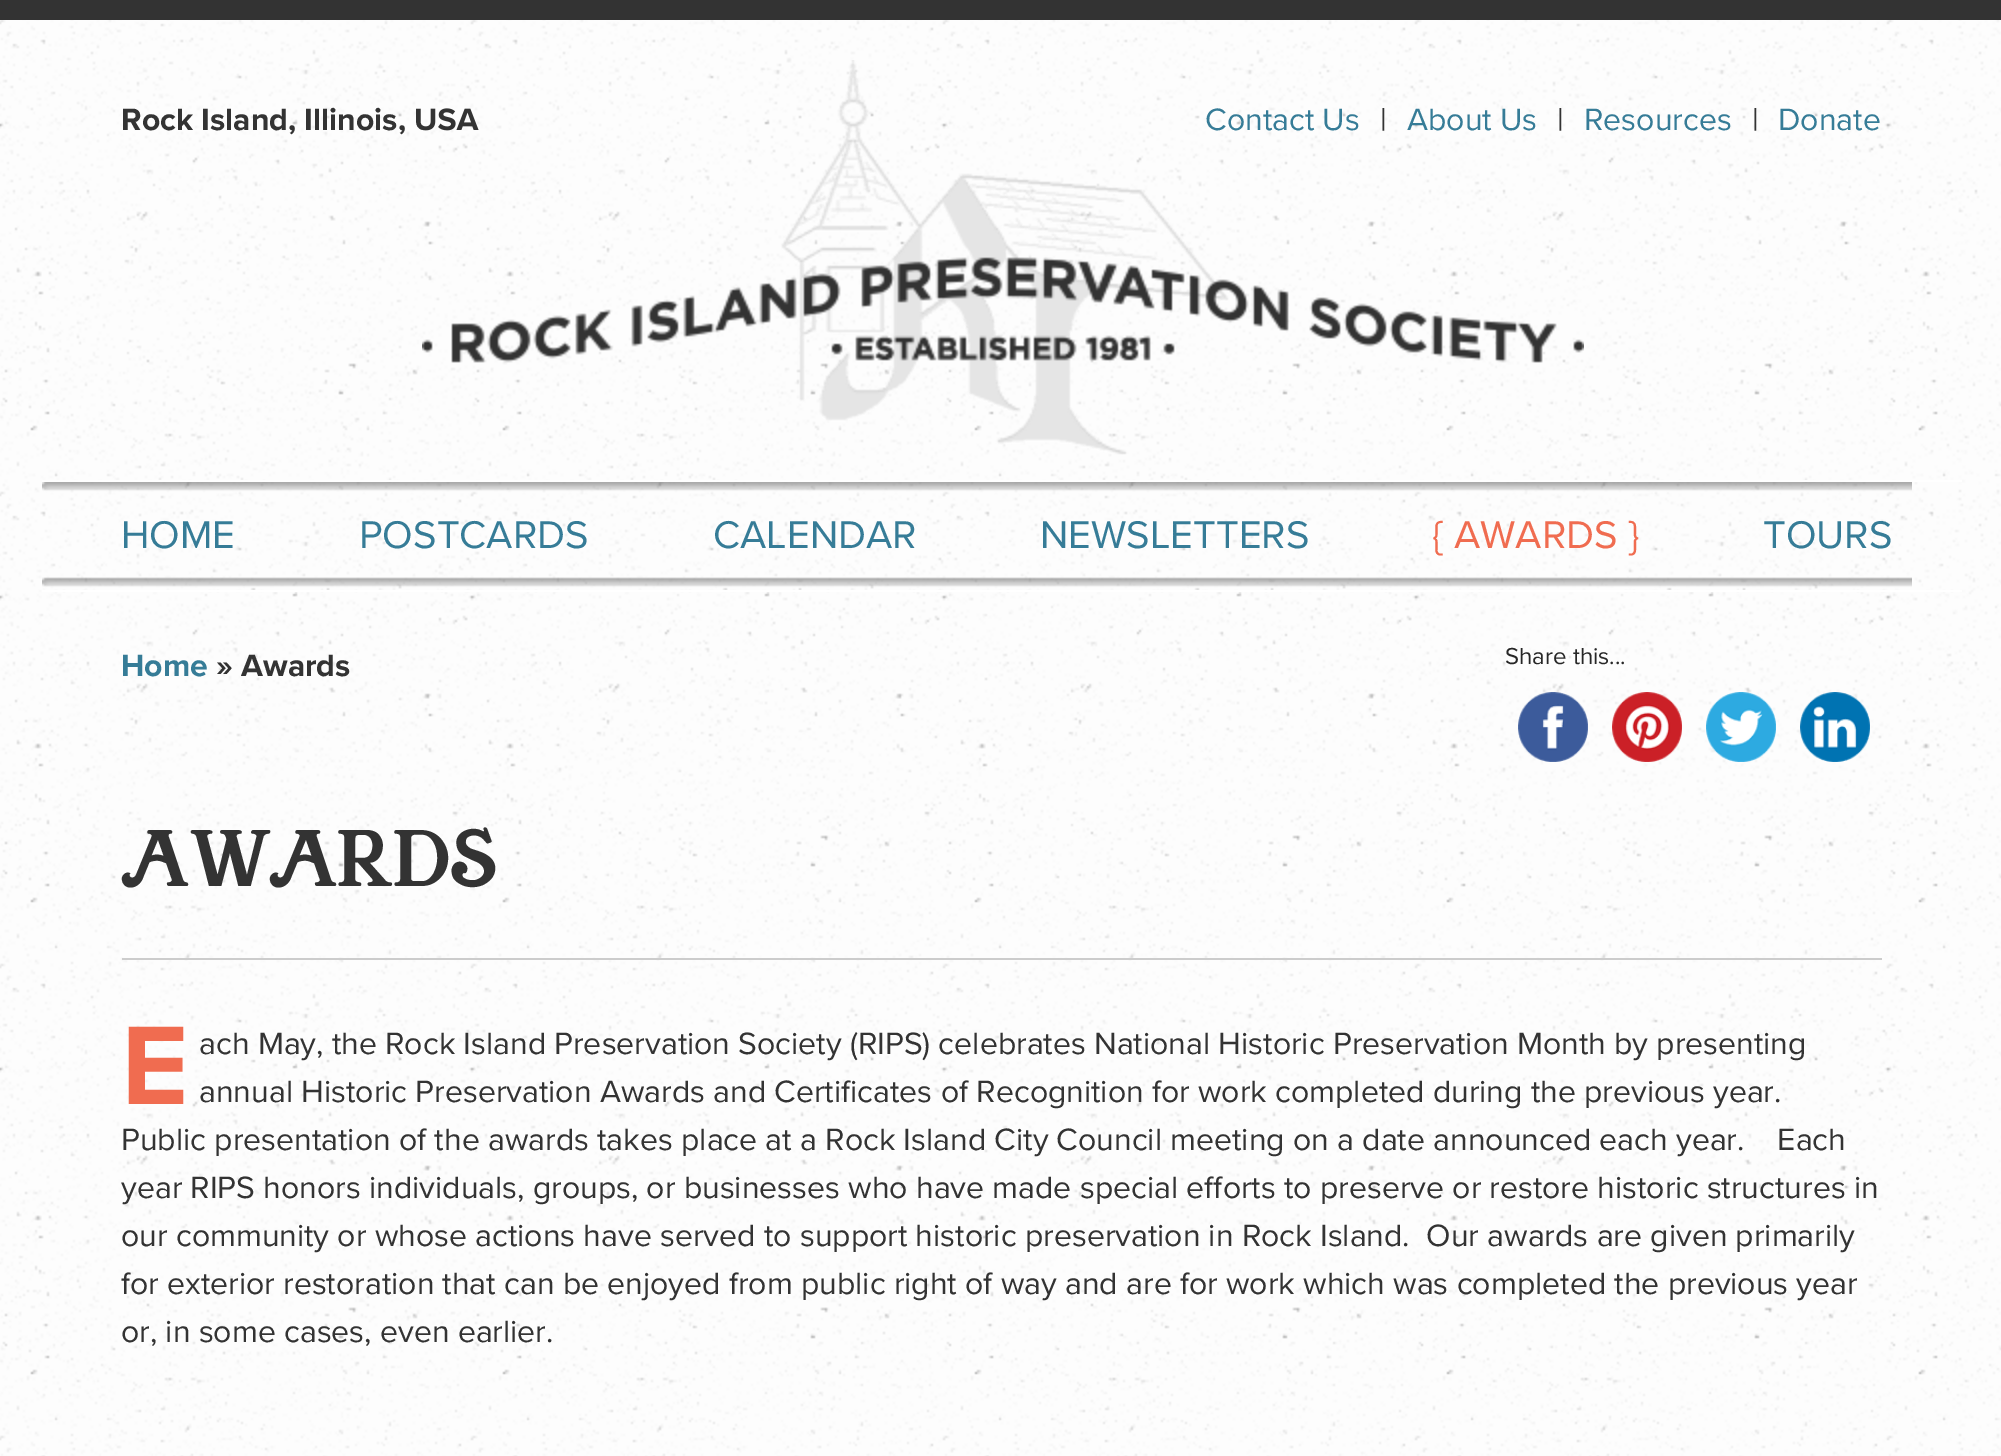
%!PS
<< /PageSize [2001 1456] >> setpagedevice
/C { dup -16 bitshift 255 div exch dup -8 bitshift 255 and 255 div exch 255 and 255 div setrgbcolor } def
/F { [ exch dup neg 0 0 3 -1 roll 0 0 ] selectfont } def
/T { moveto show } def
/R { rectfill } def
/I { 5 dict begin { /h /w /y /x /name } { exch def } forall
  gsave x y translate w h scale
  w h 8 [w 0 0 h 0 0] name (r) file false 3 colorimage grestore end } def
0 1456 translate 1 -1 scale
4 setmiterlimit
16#FFFFFF C
0 0 2001 1456 R
(1.rgb) 0 20 2001 1436 I
16#333333 C
0 0 2001 20 R
16#FFFFFF C
42 480 1920 2 R
/ProximaNova-Bold 32 F
16#333333 C
(Rock Island, Illinois, USA) 121 130 T
(2.rgb) 422 60 1162 395 I
/ProximaNova-Regular 32 F
16#367C97 C
(Contact Us) 1205 130 T
16#333333 C
(|) 1380 130 T
16#367C97 C
(About Us) 1407 130 T
16#333333 C
(|) 1557 130 T
16#367C97 C
(Resources) 1584 130 T
16#333333 C
(|) 1752 130 T
16#367C97 C
(Donate) 1778 130 T
(3.rgb) 42 482 1870 107 I
/ProximaNova-Regular 40 F
(HOME) 121 548 T
(POSTCARDS) 359 548 T
(CALENDAR) 713 548 T
(NEWSLETTERS) 1040 548 T
16#F06C50 C
({ AWARDS }) 1433 548 T
16#367C97 C
(TOURS) 1763 548 T
16#FFFFFF C
42 590 1920 2 R
/ProximaNova-Bold 32 F
16#367C97 C
(Home) 121 676 T
16#333333 C
(» Awards) 216 676 T
/ProximaNova-Regular 24 F
16#272727 C
(Share this...) 1505 664 T
(4.rgb) 1518 692 70 70 I
(5.rgb) 1612 692 70 70 I
(6.rgb) 1706 692 70 70 I
(7.rgb) 1800 692 70 70 I
/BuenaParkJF-Regular 70 F
16#333333 C
(AWARDS) 121 886 T
16#CCCCCC C
122 958 1760 2 R
/ProximaNova-Bold 116 F
16#F06C50 C
(E) 121 1104 T
/ProximaNova-Regular 32 F
16#333333 C
(ach May, the Rock Island Preservation Society \(RIPS\) celebrates National Historic Preservation Month by presenting) 199 1054 T
(annual Historic Preservation Awards and Certificates of Recognition for work completed during the previous year.) 199 1102 T
(Public presentation of the awards takes place at a Rock Island City Council meeting on a date announced each year.    Each) 121 1150 T
(year RIPS honors individuals, groups, or businesses who have made special efforts to preserve or restore historic structures in) 121 1198 T
(our community or whose actions have served to support historic preservation in Rock Island.  Our awards are given primarily) 121 1246 T
(for exterior restoration that can be enjoyed from public right of way and are for work which was completed the previous year) 121 1294 T
(or, in some cases, even earlier.) 121 1342 T
showpage
